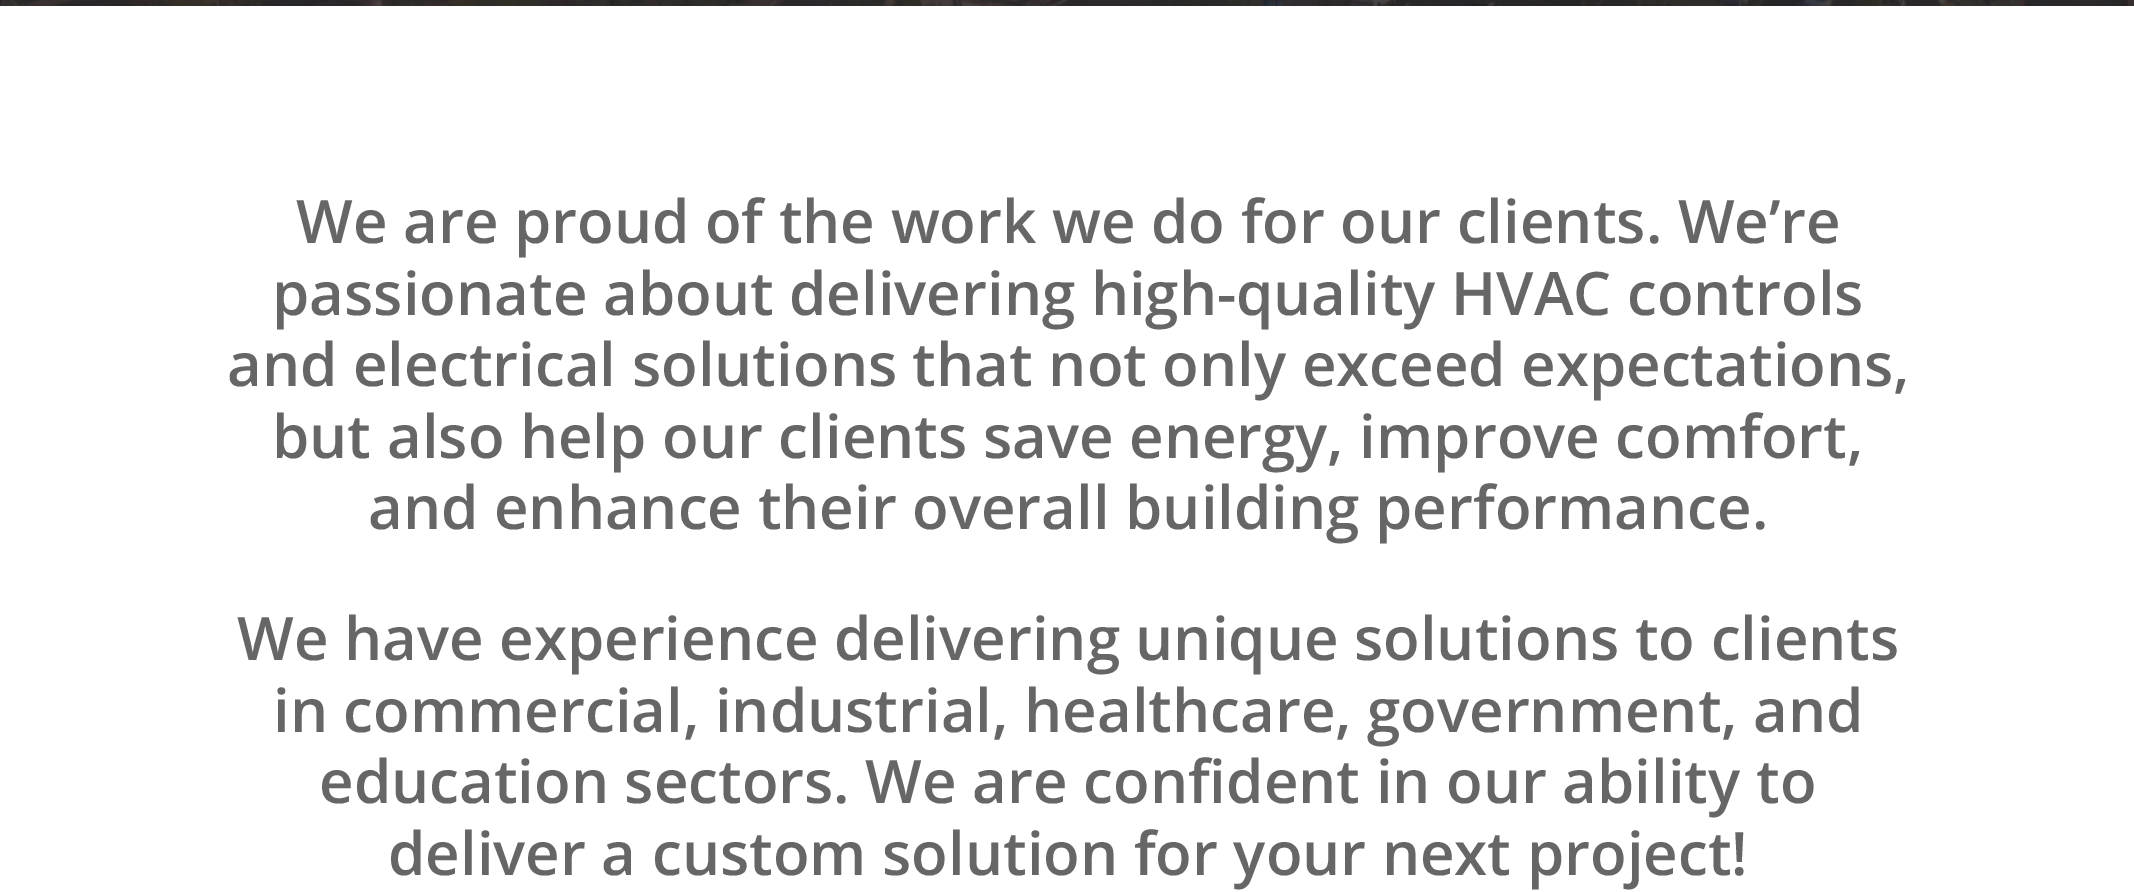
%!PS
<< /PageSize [2134 892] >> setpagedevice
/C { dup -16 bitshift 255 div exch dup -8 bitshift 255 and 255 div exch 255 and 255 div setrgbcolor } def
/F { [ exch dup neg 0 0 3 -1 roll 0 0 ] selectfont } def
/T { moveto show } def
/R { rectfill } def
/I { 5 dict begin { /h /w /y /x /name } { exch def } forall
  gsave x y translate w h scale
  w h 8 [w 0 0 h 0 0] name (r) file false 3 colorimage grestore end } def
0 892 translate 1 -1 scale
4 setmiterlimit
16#FFFFFF C
0 0 2134 892 R
(1.rgb) 0 0 2134 6 I
/OpenSans-SemiBold 60 F
16#666666 C
(We are proud of the work we do for our clients. We’re) 296 243 T
(passionate about delivering high-quality HVAC controls) 272 315 T
(and electrical solutions that not only exceed expectations,) 227 386 T
(but also help our clients save energy, improve comfort,) 272 458 T
(and enhance their overall building performance.) 368 529 T
(We have experience delivering unique solutions to clients) 237 660 T
(in commercial, industrial, healthcare, government, and) 273 732 T
(education sectors. We are confident in our ability to) 319 803 T
(deliver a custom solution for your next project!) 388 875 T
showpage
